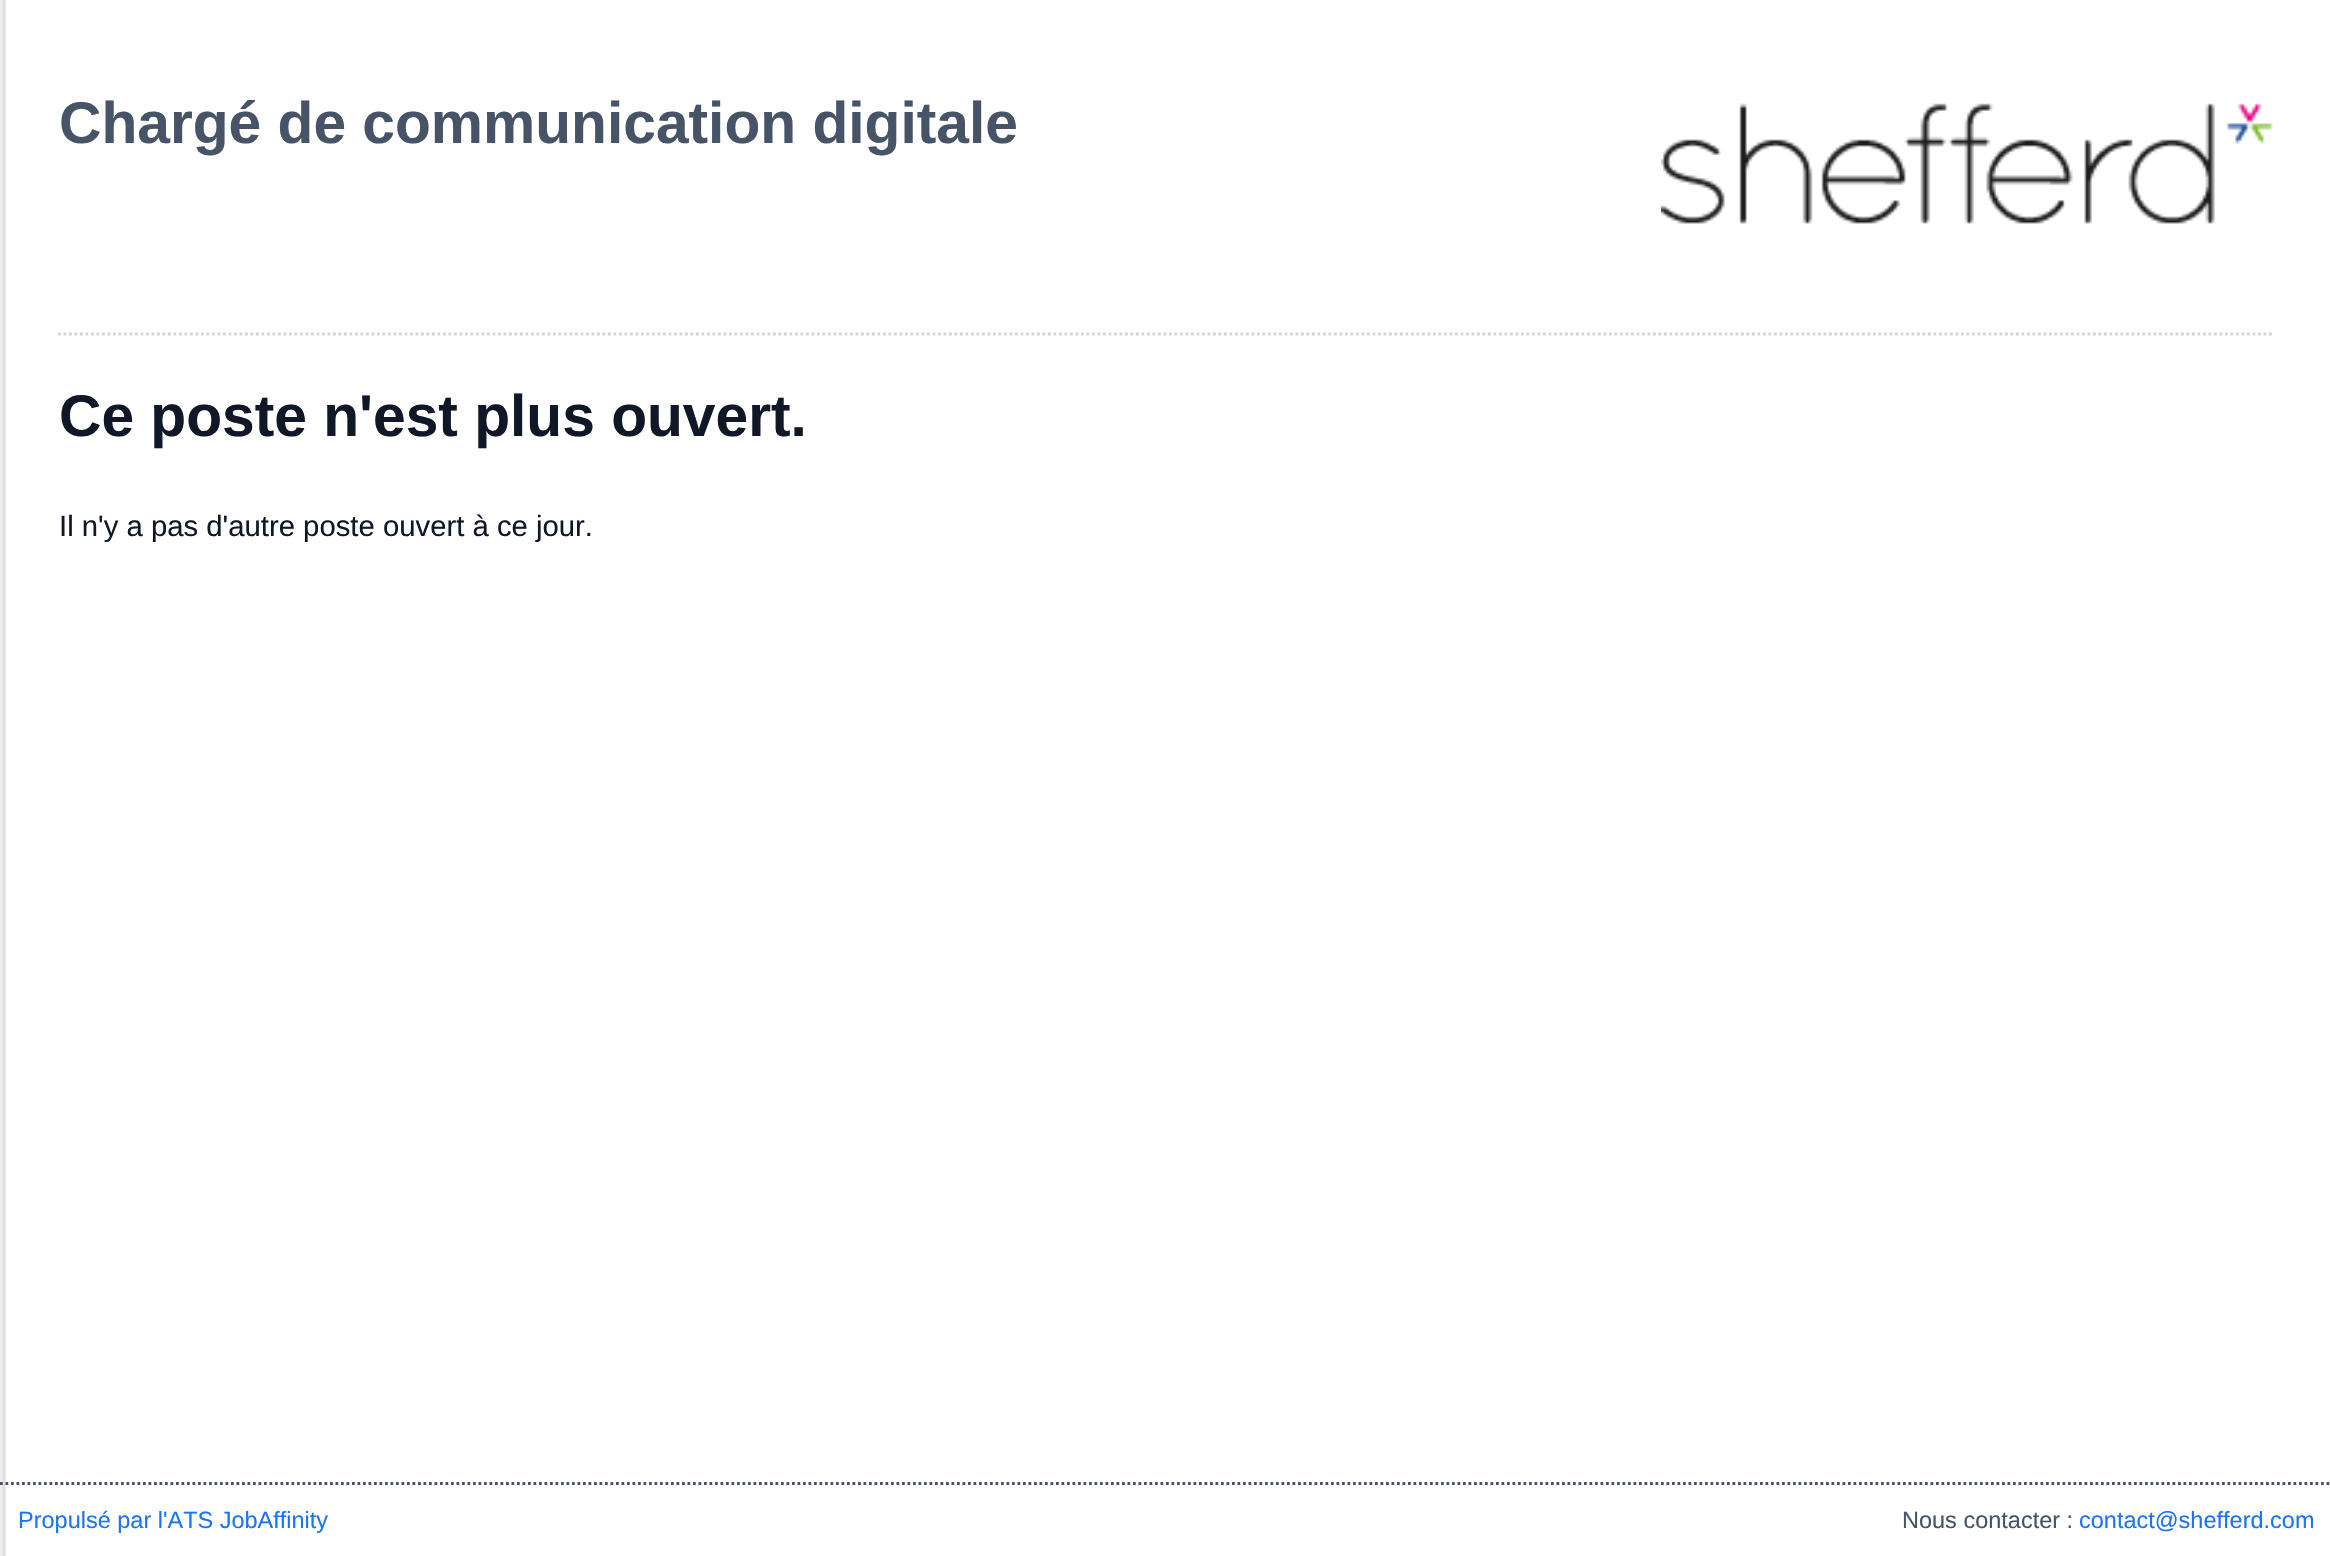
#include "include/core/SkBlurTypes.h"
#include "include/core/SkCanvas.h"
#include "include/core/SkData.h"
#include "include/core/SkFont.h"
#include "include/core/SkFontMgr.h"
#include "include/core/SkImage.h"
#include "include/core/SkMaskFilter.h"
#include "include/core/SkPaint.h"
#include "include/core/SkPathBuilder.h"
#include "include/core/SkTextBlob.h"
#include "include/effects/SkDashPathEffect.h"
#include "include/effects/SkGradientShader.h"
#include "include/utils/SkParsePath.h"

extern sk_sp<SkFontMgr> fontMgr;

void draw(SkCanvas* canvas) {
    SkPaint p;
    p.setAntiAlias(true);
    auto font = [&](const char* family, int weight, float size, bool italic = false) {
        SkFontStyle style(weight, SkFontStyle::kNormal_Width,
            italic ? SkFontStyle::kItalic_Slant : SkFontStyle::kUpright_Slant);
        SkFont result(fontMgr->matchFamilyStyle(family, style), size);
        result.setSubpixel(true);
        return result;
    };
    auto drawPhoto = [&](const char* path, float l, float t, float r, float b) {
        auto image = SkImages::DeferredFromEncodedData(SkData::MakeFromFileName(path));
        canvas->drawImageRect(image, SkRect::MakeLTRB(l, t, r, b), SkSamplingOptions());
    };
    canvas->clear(0xFFFFFFFF);
    drawPhoto("media/1.png", 0, 0, 7, 1556);
    p.setStyle(SkPaint::kStroke_Style);
    p.setStrokeWidth(2.8f);
    p.setColor(0xFFD0D5DD);
    p.setPathEffect(SkDashPathEffect::Make({{2.75f, 2.75f}}, 0));
    canvas->drawPath(SkPathBuilder().moveTo(58, 334).lineTo(2274, 334).detach(), p);
    p.setPathEffect(nullptr);
    auto font1 = font("Liberation Sans", 700, 58.7f);
    p.setStyle(SkPaint::kFill_Style);
    p.setColor(0xFF475467);
    canvas->drawString("Chargé de communication digitale", 59, 143, font1, p);
    drawPhoto("media/2.png", 1661, 103, 2273, 224);
    p.setColor(0xFF101828);
    canvas->drawString("Ce poste n'est plus ouvert.", 59, 436, font1, p);
    auto font2 = font("Liberation Sans", 400, 29.3f);
    canvas->drawString("Il n'y a pas d'autre poste ouvert à ce jour.", 59, 536, font2, p);
    p.setStyle(SkPaint::kStroke_Style);
    p.setColor(0xFF475467);
    p.setPathEffect(SkDashPathEffect::Make({{2.75f, 2.75f}}, 0));
    canvas->drawPath(SkPathBuilder().moveTo(0, 1483.5f).lineTo(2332, 1483.5f).detach(), p);
    p.setPathEffect(nullptr);
    auto font3 = font("Liberation Sans", 400, 23.5f);
    p.setStyle(SkPaint::kFill_Style);
    p.setColor(0xFF1A74F4);
    canvas->drawString("Propulsé par l'ATS JobAffinity", 18, 1528, font3, p);
    p.setColor(0xFF475467);
    canvas->drawString("Nous contacter :", 1902, 1528, font3, p);
    p.setColor(0xFF1A74F4);
    canvas->drawString("contact@shefferd.com", 2079, 1528, font3, p);
}
